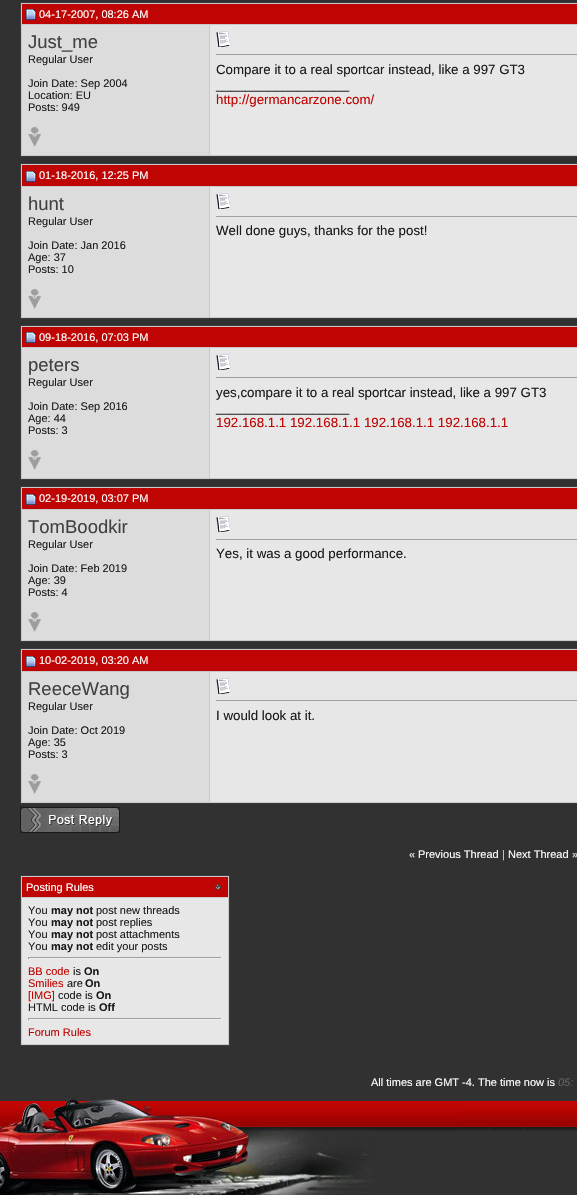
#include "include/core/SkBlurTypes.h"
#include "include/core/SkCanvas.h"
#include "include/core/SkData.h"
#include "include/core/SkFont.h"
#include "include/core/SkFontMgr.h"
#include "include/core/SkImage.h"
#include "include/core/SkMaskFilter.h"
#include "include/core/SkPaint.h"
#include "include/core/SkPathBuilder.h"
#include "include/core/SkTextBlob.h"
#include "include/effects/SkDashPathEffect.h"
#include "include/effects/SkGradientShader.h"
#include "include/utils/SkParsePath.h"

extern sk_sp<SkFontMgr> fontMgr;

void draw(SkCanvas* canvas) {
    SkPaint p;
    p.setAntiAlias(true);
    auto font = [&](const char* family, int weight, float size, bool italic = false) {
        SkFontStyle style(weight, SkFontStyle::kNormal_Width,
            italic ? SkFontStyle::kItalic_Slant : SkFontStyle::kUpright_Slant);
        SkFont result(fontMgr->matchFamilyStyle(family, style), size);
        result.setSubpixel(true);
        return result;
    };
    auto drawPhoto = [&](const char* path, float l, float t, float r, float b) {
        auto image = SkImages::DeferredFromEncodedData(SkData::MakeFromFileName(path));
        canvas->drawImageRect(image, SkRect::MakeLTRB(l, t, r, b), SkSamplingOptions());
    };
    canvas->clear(0xFF313131);
    p.setStyle(SkPaint::kStroke_Style);
    p.setStrokeWidth(1);
    p.setColor(0xFF3B3A3F);
    canvas->drawRect(SkRect::MakeLTRB(20.5f, 2.5f, 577.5f, 156.5f), p);
    p.setStyle(SkPaint::kFill_Style);
    {
        const struct { float l, t, r, b; SkColor color; } items[] = {
            {22, 4, 577, 24, 0xFFBE0503},
            {21, 3, 577, 4, 0xFFC9C9C9},
            {21, 24, 577, 25, 0xFFC9C9C9},
            {21, 3, 22, 119, 0xFFC9C9C9},
        };
        for (auto [l, t, r, b, color] : items) {
            p.setColor(color);
            canvas->drawRect(SkRect::MakeLTRB(l, t, r, b), p);
        }
    }
    drawPhoto("media/1.png", 26, 9, 36, 20);
    auto font1 = font("Liberation Sans", 400, 11);
    p.setColor(0xFFFFFFFF);
    canvas->drawString("04-17-2007, 08:26 AM", 39, 18, font1, p);
    p.setColor(0xFFDCDCDC);
    canvas->drawRect(SkRect::MakeLTRB(22, 25, 209, 155), p);
    p.setColor(0xFFC9C9C9);
    canvas->drawRect(SkRect::MakeLTRB(209, 25, 210, 156), p);
    auto font2 = font("Liberation Sans", 400, 18.5f);
    p.setColor(0xFF414141);
    canvas->drawString("Just_me", 28, 48, font2, p);
    p.setColor(0xFF1A1A1A);
    {
        const struct { const char* s; float x, y; } items[] = {
            {"Regular User", 28, 63},
            {"Join Date: Sep 2004", 28, 87},
            {"Location: EU", 28, 99},
            {"Posts: 949", 28, 111},
        };
        for (auto [s, x, y] : items) {
            canvas->drawString(s, x, y, font1, p);
        }
    }
    p.setColor(0xFFE7E7E7);
    canvas->drawRect(SkRect::MakeLTRB(210, 25, 577, 155), p);
    drawPhoto("media/2.png", 216, 31, 231, 47);
    p.setColor(0xFF9F9F9F);
    canvas->drawRect(SkRect::MakeLTRB(216, 54, 577, 55), p);
    auto font3 = font("Liberation Sans", 400, 13.3f);
    p.setColor(0xFF1A1A1A);
    canvas->drawString("Compare it to a real sportcar instead, like a 997 GT3", 216, 74, font3, p);
    canvas->drawString("__________________", 216, 89, font3, p);
    p.setColor(0xFFBE0503);
    canvas->drawString("http://germancarzone.com/", 216, 104, font3, p);
    p.setColor(0xFFC9C9C9);
    canvas->drawRect(SkRect::MakeLTRB(21, 155, 577, 156), p);
    canvas->drawRect(SkRect::MakeLTRB(21, 119, 22, 156), p);
    drawPhoto("media/3.png", 28, 127, 41, 147);
    p.setStyle(SkPaint::kStroke_Style);
    p.setColor(0xFF3B3A3F);
    canvas->drawRect(SkRect::MakeLTRB(20.5f, 163.5f, 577.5f, 318.5f), p);
    p.setStyle(SkPaint::kFill_Style);
    {
        const struct { float l, t, r, b; SkColor color; } items[] = {
            {22, 165, 577, 186, 0xFFBE0503},
            {21, 164, 577, 165, 0xFFC9C9C9},
            {21, 186, 577, 187, 0xFFC9C9C9},
            {21, 164, 22, 281, 0xFFC9C9C9},
        };
        for (auto [l, t, r, b, color] : items) {
            p.setColor(color);
            canvas->drawRect(SkRect::MakeLTRB(l, t, r, b), p);
        }
    }
    drawPhoto("media/1.png", 26, 171, 36, 182);
    p.setColor(0xFFFFFFFF);
    canvas->drawString("01-18-2016, 12:25 PM", 39, 179, font1, p);
    p.setColor(0xFFDCDCDC);
    canvas->drawRect(SkRect::MakeLTRB(22, 187, 209, 317), p);
    p.setColor(0xFFC9C9C9);
    canvas->drawRect(SkRect::MakeLTRB(209, 187, 210, 318), p);
    p.setColor(0xFF414141);
    canvas->drawString("hunt", 28, 210, font2, p);
    p.setColor(0xFF1A1A1A);
    {
        const struct { const char* s; float x, y; } items[] = {
            {"Regular User", 28, 225},
            {"Join Date: Jan 2016", 28, 249},
            {"Age: 37", 28, 261},
            {"Posts: 10", 28, 273},
        };
        for (auto [s, x, y] : items) {
            canvas->drawString(s, x, y, font1, p);
        }
    }
    p.setColor(0xFFE7E7E7);
    canvas->drawRect(SkRect::MakeLTRB(210, 187, 577, 317), p);
    drawPhoto("media/2.png", 216, 193, 231, 209);
    p.setColor(0xFF9F9F9F);
    canvas->drawRect(SkRect::MakeLTRB(216, 216, 577, 217), p);
    p.setColor(0xFF1A1A1A);
    canvas->drawString("Well done guys, thanks for the post!", 216, 235, font3, p);
    p.setColor(0xFFC9C9C9);
    canvas->drawRect(SkRect::MakeLTRB(21, 317, 577, 318), p);
    canvas->drawRect(SkRect::MakeLTRB(21, 281, 22, 318), p);
    drawPhoto("media/3.png", 28, 289, 41, 309);
    p.setStyle(SkPaint::kStroke_Style);
    p.setColor(0xFF3B3A3F);
    canvas->drawRect(SkRect::MakeLTRB(20.5f, 325.5f, 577.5f, 479.5f), p);
    p.setStyle(SkPaint::kFill_Style);
    {
        const struct { float l, t, r, b; SkColor color; } items[] = {
            {22, 327, 577, 347, 0xFFBE0503},
            {21, 326, 577, 327, 0xFFC9C9C9},
            {21, 347, 577, 348, 0xFFC9C9C9},
            {21, 326, 22, 442, 0xFFC9C9C9},
        };
        for (auto [l, t, r, b, color] : items) {
            p.setColor(color);
            canvas->drawRect(SkRect::MakeLTRB(l, t, r, b), p);
        }
    }
    drawPhoto("media/1.png", 26, 332, 36, 343);
    p.setColor(0xFFFFFFFF);
    canvas->drawString("09-18-2016, 07:03 PM", 39, 341, font1, p);
    p.setColor(0xFFDCDCDC);
    canvas->drawRect(SkRect::MakeLTRB(22, 348, 209, 478), p);
    p.setColor(0xFFC9C9C9);
    canvas->drawRect(SkRect::MakeLTRB(209, 348, 210, 479), p);
    p.setColor(0xFF414141);
    canvas->drawString("peters", 28, 371, font2, p);
    p.setColor(0xFF1A1A1A);
    {
        const struct { const char* s; float x, y; } items[] = {
            {"Regular User", 28, 386},
            {"Join Date: Sep 2016", 28, 410},
            {"Age: 44", 28, 422},
            {"Posts: 3", 28, 434},
        };
        for (auto [s, x, y] : items) {
            canvas->drawString(s, x, y, font1, p);
        }
    }
    p.setColor(0xFFE7E7E7);
    canvas->drawRect(SkRect::MakeLTRB(210, 348, 577, 478), p);
    drawPhoto("media/2.png", 216, 354, 231, 370);
    p.setColor(0xFF9F9F9F);
    canvas->drawRect(SkRect::MakeLTRB(216, 377, 577, 378), p);
    p.setColor(0xFF1A1A1A);
    canvas->drawString("yes,compare it to a real sportcar instead, like a 997 GT3", 216, 397, font3, p);
    canvas->drawString("__________________", 216, 412, font3, p);
    p.setColor(0xFFBE0503);
    canvas->drawString("192.168.1.1 192.168.1.1 192.168.1.1 192.168.1.1", 216, 427, font3, p);
    p.setColor(0xFFC9C9C9);
    canvas->drawRect(SkRect::MakeLTRB(21, 478, 577, 479), p);
    canvas->drawRect(SkRect::MakeLTRB(21, 442, 22, 479), p);
    drawPhoto("media/3.png", 28, 450, 41, 470);
    p.setStyle(SkPaint::kStroke_Style);
    p.setColor(0xFF3B3A3F);
    canvas->drawRect(SkRect::MakeLTRB(20.5f, 486.5f, 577.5f, 641.5f), p);
    p.setStyle(SkPaint::kFill_Style);
    {
        const struct { float l, t, r, b; SkColor color; } items[] = {
            {22, 488, 577, 509, 0xFFBE0503},
            {21, 487, 577, 488, 0xFFC9C9C9},
            {21, 509, 577, 510, 0xFFC9C9C9},
            {21, 487, 22, 604, 0xFFC9C9C9},
        };
        for (auto [l, t, r, b, color] : items) {
            p.setColor(color);
            canvas->drawRect(SkRect::MakeLTRB(l, t, r, b), p);
        }
    }
    drawPhoto("media/1.png", 26, 494, 36, 505);
    p.setColor(0xFFFFFFFF);
    canvas->drawString("02-19-2019, 03:07 PM", 39, 502, font1, p);
    p.setColor(0xFFDCDCDC);
    canvas->drawRect(SkRect::MakeLTRB(22, 510, 209, 640), p);
    p.setColor(0xFFC9C9C9);
    canvas->drawRect(SkRect::MakeLTRB(209, 510, 210, 641), p);
    p.setColor(0xFF414141);
    canvas->drawString("TomBoodkir", 28, 533, font2, p);
    p.setColor(0xFF1A1A1A);
    {
        const struct { const char* s; float x, y; } items[] = {
            {"Regular User", 28, 548},
            {"Join Date: Feb 2019", 28, 572},
            {"Age: 39", 28, 584},
            {"Posts: 4", 28, 596},
        };
        for (auto [s, x, y] : items) {
            canvas->drawString(s, x, y, font1, p);
        }
    }
    p.setColor(0xFFE7E7E7);
    canvas->drawRect(SkRect::MakeLTRB(210, 510, 577, 640), p);
    drawPhoto("media/2.png", 216, 516, 231, 532);
    p.setColor(0xFF9F9F9F);
    canvas->drawRect(SkRect::MakeLTRB(216, 539, 577, 540), p);
    p.setColor(0xFF1A1A1A);
    canvas->drawString("Yes, it was a good performance.", 216, 558, font3, p);
    p.setColor(0xFFC9C9C9);
    canvas->drawRect(SkRect::MakeLTRB(21, 640, 577, 641), p);
    canvas->drawRect(SkRect::MakeLTRB(21, 604, 22, 641), p);
    drawPhoto("media/3.png", 28, 612, 41, 632);
    p.setStyle(SkPaint::kStroke_Style);
    p.setColor(0xFF3B3A3F);
    canvas->drawRect(SkRect::MakeLTRB(20.5f, 648.5f, 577.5f, 803.5f), p);
    p.setStyle(SkPaint::kFill_Style);
    {
        const struct { float l, t, r, b; SkColor color; } items[] = {
            {22, 650, 577, 671, 0xFFBE0503},
            {21, 649, 577, 650, 0xFFC9C9C9},
            {21, 671, 577, 672, 0xFFC9C9C9},
            {21, 649, 22, 766, 0xFFC9C9C9},
        };
        for (auto [l, t, r, b, color] : items) {
            p.setColor(color);
            canvas->drawRect(SkRect::MakeLTRB(l, t, r, b), p);
        }
    }
    drawPhoto("media/1.png", 26, 656, 36, 667);
    p.setColor(0xFFFFFFFF);
    canvas->drawString("10-02-2019, 03:20 AM", 39, 664, font1, p);
    p.setColor(0xFFDCDCDC);
    canvas->drawRect(SkRect::MakeLTRB(22, 672, 209, 802), p);
    p.setColor(0xFFC9C9C9);
    canvas->drawRect(SkRect::MakeLTRB(209, 672, 210, 803), p);
    p.setColor(0xFF414141);
    canvas->drawString("ReeceWang", 28, 695, font2, p);
    p.setColor(0xFF1A1A1A);
    {
        const struct { const char* s; float x, y; } items[] = {
            {"Regular User", 28, 710},
            {"Join Date: Oct 2019", 28, 734},
            {"Age: 35", 28, 746},
            {"Posts: 3", 28, 758},
        };
        for (auto [s, x, y] : items) {
            canvas->drawString(s, x, y, font1, p);
        }
    }
    p.setColor(0xFFE7E7E7);
    canvas->drawRect(SkRect::MakeLTRB(210, 672, 577, 802), p);
    drawPhoto("media/2.png", 216, 678, 231, 694);
    p.setColor(0xFF9F9F9F);
    canvas->drawRect(SkRect::MakeLTRB(216, 700, 577, 701), p);
    p.setColor(0xFF1A1A1A);
    canvas->drawString("I would look at it.", 216, 720, font3, p);
    p.setColor(0xFFC9C9C9);
    canvas->drawRect(SkRect::MakeLTRB(21, 802, 577, 803), p);
    canvas->drawRect(SkRect::MakeLTRB(21, 766, 22, 803), p);
    drawPhoto("media/3.png", 28, 774, 41, 794);
    drawPhoto("media/4.png", 20, 807, 120, 833);
    auto font4 = font("Liberation Sans", 700, 11);
    p.setColor(0xFFCCCCCC);
    canvas->drawString("«", 409, 858, font4, p);
    p.setColor(0xFFFFFFFF);
    canvas->drawString("Previous Thread", 418, 858, font1, p);
    p.setColor(0xFFCCCCCC);
    canvas->drawString("|", 502, 858, font1, p);
    p.setColor(0xFFFFFFFF);
    canvas->drawString("Next Thread", 508, 858, font1, p);
    p.setColor(0xFFCCCCCC);
    canvas->drawString("»", 572, 858, font4, p);
    p.setColor(0xFFC9C9C9);
    canvas->drawRect(SkRect::MakeLTRB(20.5f, 875.5f, 229.5f, 1045.5f), p);
    p.setStyle(SkPaint::kStroke_Style);
    p.setColor(0xFF3B3A3F);
    canvas->drawRect(SkRect::MakeLTRB(20.5f, 875.5f, 229.5f, 1045.5f), p);
    p.setStyle(SkPaint::kFill_Style);
    p.setColor(0xFFBE0503);
    canvas->drawRect(SkRect::MakeLTRB(22, 877, 228, 897), p);
    p.setColor(0xFFFFFFFF);
    canvas->drawString("Posting Rules", 26, 891, font1, p);
    drawPhoto("media/5.png", 215, 884, 221, 890);
    p.setColor(0xFFE7E7E7);
    canvas->drawRect(SkRect::MakeLTRB(22, 898, 228, 1044), p);
    p.setColor(0xFF1A1A1A);
    canvas->drawString("You", 28, 914, font1, p);
    canvas->drawString("may not", 51, 914, font4, p);
    canvas->drawString("post new threads", 96, 914, font1, p);
    canvas->drawString("You", 28, 926, font1, p);
    canvas->drawString("may not", 51, 926, font4, p);
    canvas->drawString("post replies", 96, 926, font1, p);
    canvas->drawString("You", 28, 938, font1, p);
    canvas->drawString("may not", 51, 938, font4, p);
    canvas->drawString("post attachments", 96, 938, font1, p);
    canvas->drawString("You", 28, 950, font1, p);
    canvas->drawString("may not", 51, 950, font4, p);
    canvas->drawString("edit your posts", 96, 950, font1, p);
    {
        const struct { float l, t, r, b; SkColor color; } items[] = {
            {28, 957, 222, 958, 0xFF9F9F9F},
            {221, 957, 222, 959, 0xFFEEEEEE},
            {28, 958, 222, 959, 0xFFEEEEEE},
            {28, 957, 29, 959, 0xFF9F9F9F},
        };
        for (auto [l, t, r, b, color] : items) {
            p.setColor(color);
            canvas->drawRect(SkRect::MakeLTRB(l, t, r, b), p);
        }
    }
    p.setColor(0xFFBE0503);
    canvas->drawString("BB code", 28, 975, font1, p);
    p.setColor(0xFF1A1A1A);
    canvas->drawString("is", 73, 975, font1, p);
    canvas->drawString("On", 84, 975, font4, p);
    p.setColor(0xFFBE0503);
    canvas->drawString("Smilies", 28, 987, font1, p);
    p.setColor(0xFF1A1A1A);
    canvas->drawString("are", 67, 987, font1, p);
    canvas->drawString("On", 85, 987, font4, p);
    p.setColor(0xFFBE0503);
    canvas->drawString("[IMG]", 28, 999, font1, p);
    p.setColor(0xFF1A1A1A);
    canvas->drawString("code is", 58, 999, font1, p);
    canvas->drawString("On", 96, 999, font4, p);
    canvas->drawString("HTML code is", 28, 1011, font1, p);
    canvas->drawString("Off", 99, 1011, font4, p);
    {
        const struct { float l, t, r, b; SkColor color; } items[] = {
            {28, 1018, 222, 1019, 0xFF9F9F9F},
            {221, 1018, 222, 1020, 0xFFEEEEEE},
            {28, 1019, 222, 1020, 0xFFEEEEEE},
            {28, 1018, 29, 1020, 0xFF9F9F9F},
        };
        for (auto [l, t, r, b, color] : items) {
            p.setColor(color);
            canvas->drawRect(SkRect::MakeLTRB(l, t, r, b), p);
        }
    }
    p.setColor(0xFFBE0503);
    canvas->drawString("Forum Rules", 28, 1036, font1, p);
    drawPhoto("media/6.png", 458, 1101, 577, 1131);
    drawPhoto("media/7.png", 0, 1097, 458, 1195);
    p.setColor(0xFFFFFFFF);
    canvas->drawString("All times are GMT -4. The time now is", 371, 1086, font1, p);
    auto font5 = font("Liberation Sans", 400, 11, true);
    p.setColor(0xFF666666);
    canvas->drawString("05:", 558, 1086, font5, p);
}
